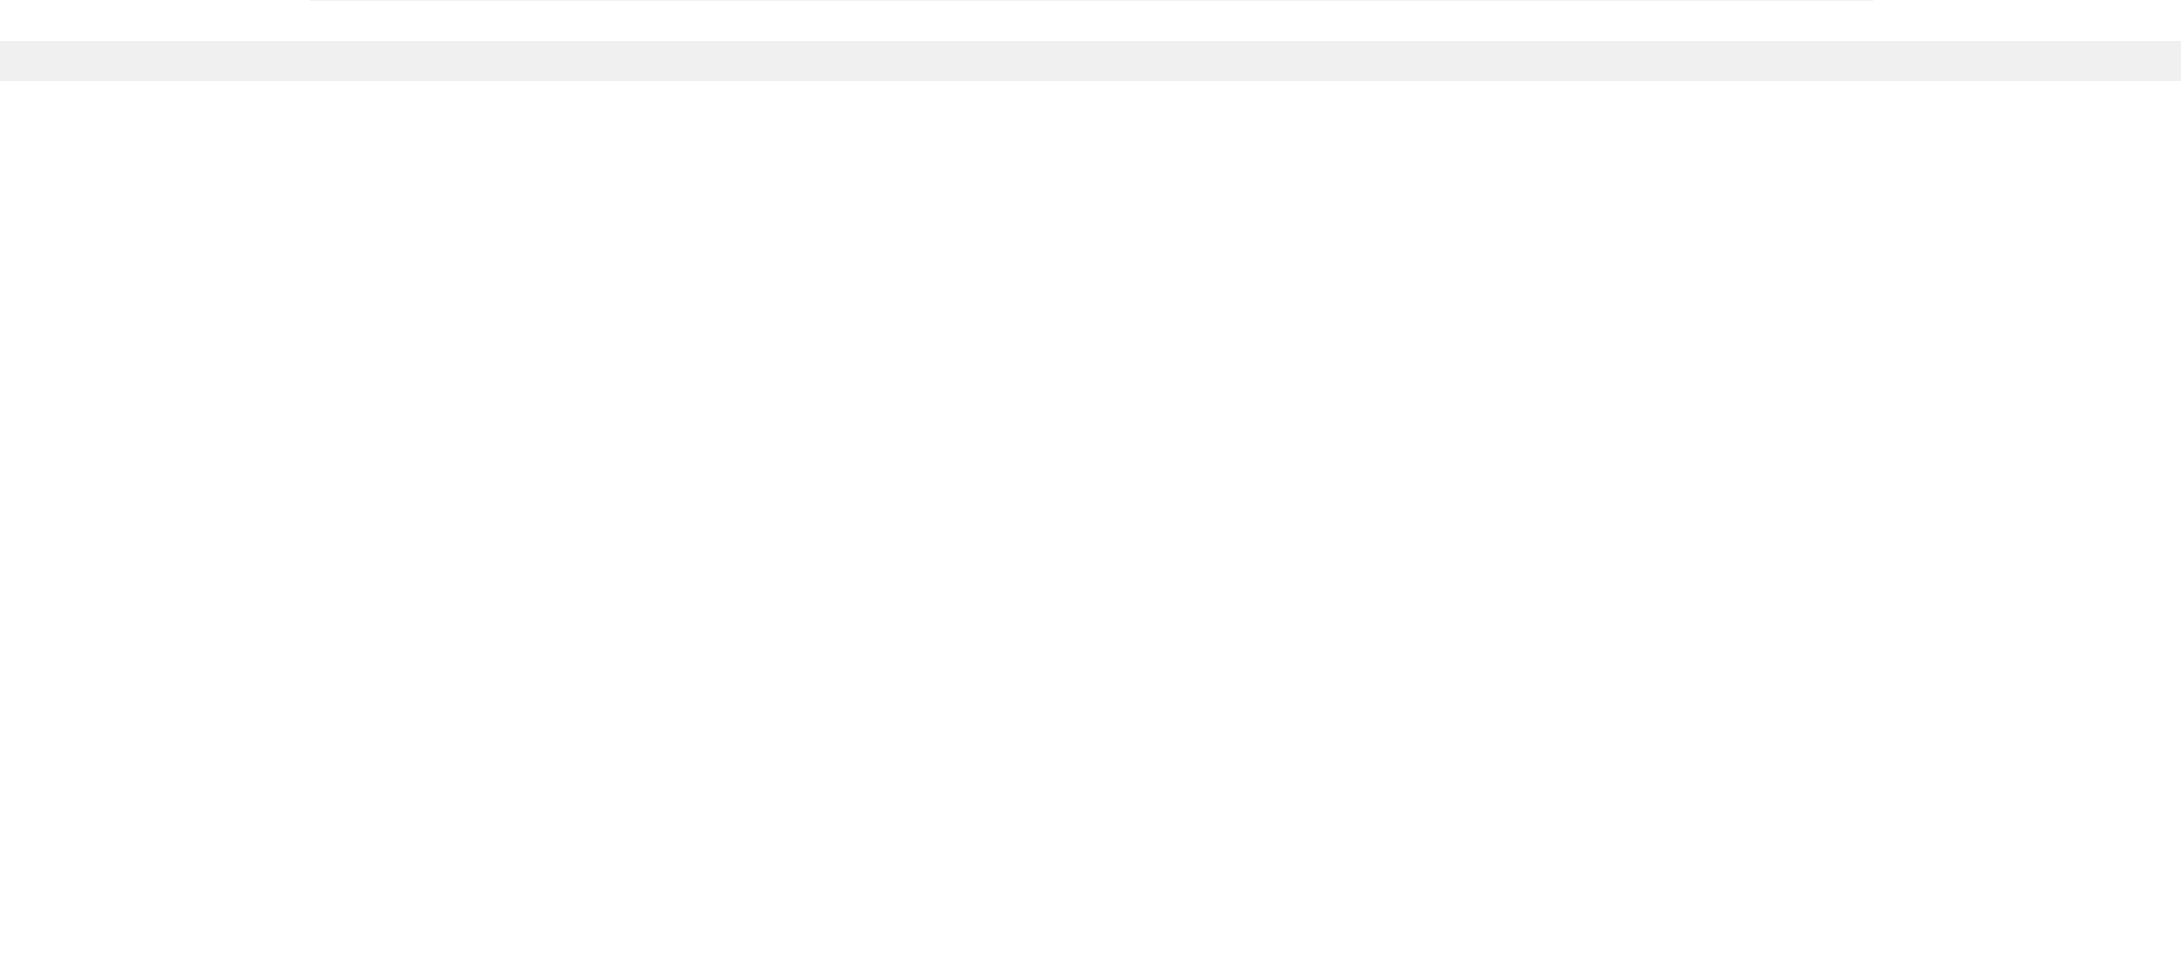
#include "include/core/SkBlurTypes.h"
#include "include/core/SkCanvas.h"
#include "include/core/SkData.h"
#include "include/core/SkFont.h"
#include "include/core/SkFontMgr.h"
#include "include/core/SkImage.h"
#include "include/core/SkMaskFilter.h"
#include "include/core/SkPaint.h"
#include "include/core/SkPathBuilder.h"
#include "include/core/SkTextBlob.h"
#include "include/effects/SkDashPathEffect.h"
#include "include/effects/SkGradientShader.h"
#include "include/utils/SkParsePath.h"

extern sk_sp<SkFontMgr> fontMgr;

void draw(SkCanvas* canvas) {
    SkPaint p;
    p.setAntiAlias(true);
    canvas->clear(0xFFFFFFFF);
    p.setColor(0xFFF2F2F2);
    canvas->drawRect(SkRect::MakeLTRB(310, 0, 1873, 1), p);
    p.setColor(0xFFF0F0F0);
    canvas->drawRect(SkRect::MakeLTRB(0, 41, 2181, 81), p);
}
